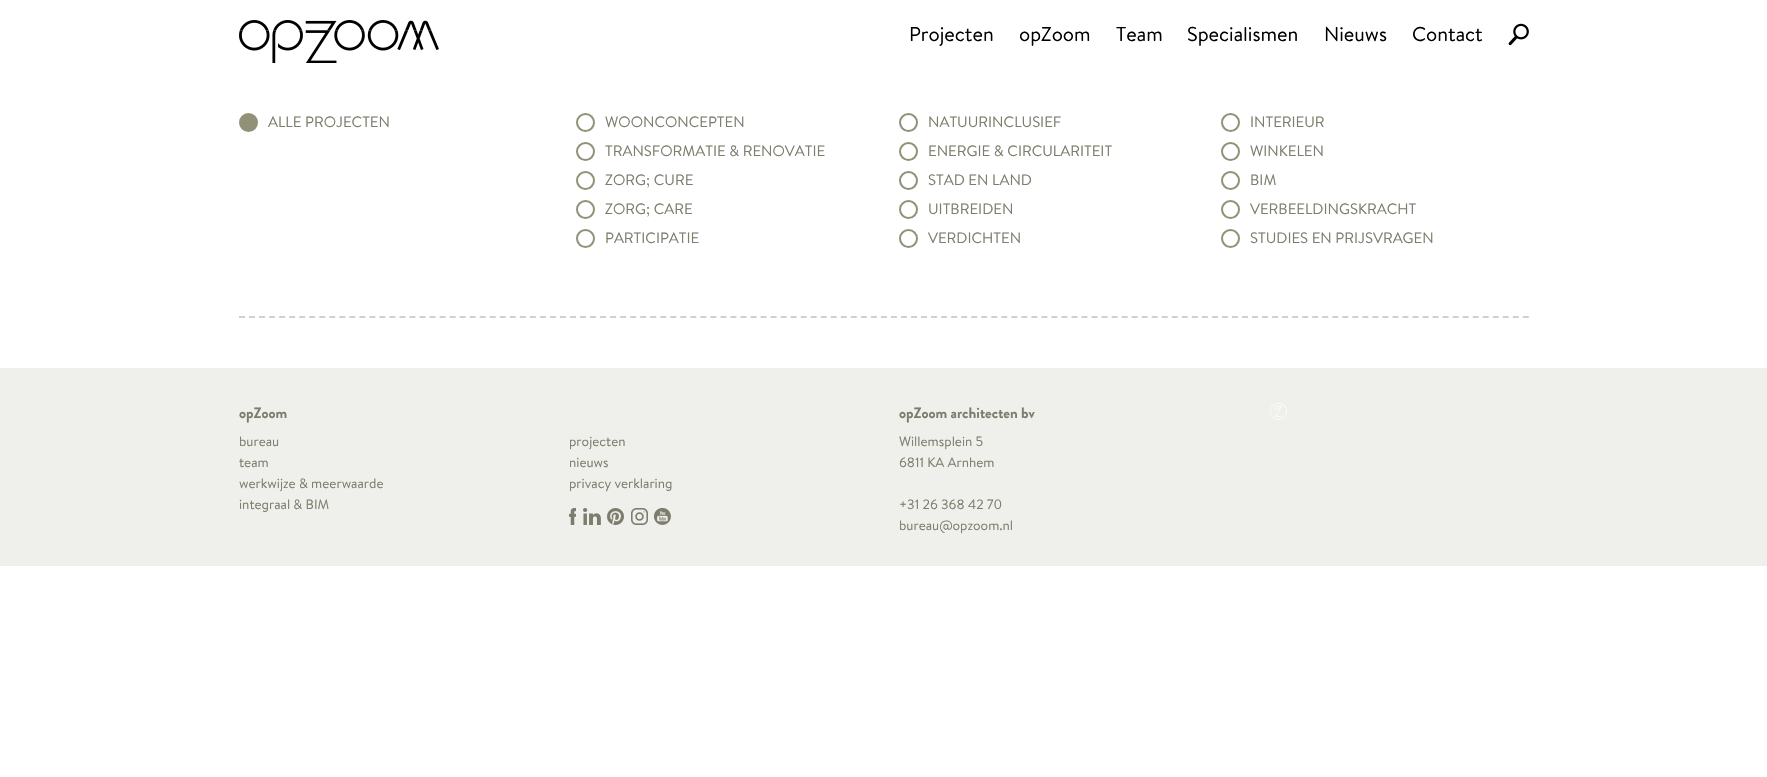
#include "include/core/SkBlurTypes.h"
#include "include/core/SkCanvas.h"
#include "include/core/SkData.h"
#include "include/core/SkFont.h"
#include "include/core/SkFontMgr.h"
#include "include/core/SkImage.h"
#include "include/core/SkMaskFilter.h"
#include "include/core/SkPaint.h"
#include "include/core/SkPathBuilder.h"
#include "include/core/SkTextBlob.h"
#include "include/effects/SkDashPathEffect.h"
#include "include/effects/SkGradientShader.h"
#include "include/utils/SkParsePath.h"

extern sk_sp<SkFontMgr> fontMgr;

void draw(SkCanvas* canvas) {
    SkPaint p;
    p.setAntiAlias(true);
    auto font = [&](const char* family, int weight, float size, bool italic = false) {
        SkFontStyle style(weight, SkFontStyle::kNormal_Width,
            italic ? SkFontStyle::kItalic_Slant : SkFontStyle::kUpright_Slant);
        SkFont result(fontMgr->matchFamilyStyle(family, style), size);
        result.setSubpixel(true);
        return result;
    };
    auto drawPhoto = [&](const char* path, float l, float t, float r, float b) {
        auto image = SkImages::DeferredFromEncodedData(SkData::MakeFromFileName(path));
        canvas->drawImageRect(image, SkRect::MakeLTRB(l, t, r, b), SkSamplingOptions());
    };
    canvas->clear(0xFFFFFFFF);
    drawPhoto("media/1.png", 239, 20, 439, 63);
    auto font1 = font("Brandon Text", 400, 20);
    p.setColor(0xFF000000);
    {
        const struct { const char* s; float x, y; } items[] = {
            {"Projecten", 909, 41},
            {"opZoom", 1019, 41},
            {"Team", 1116, 41},
            {"Specialismen", 1187, 41},
            {"Nieuws", 1324, 41},
            {"Contact", 1412, 41},
        };
        for (auto [s, x, y] : items) {
            canvas->drawString(s, x, y, font1, p);
        }
    }
    drawPhoto("media/2.png", 1508, 23, 1529, 46);
    p.setColor(0xFF919178);
    canvas->drawCircle(248.5f, 122.5f, 8.5f, p);
    p.setStyle(SkPaint::kStroke_Style);
    p.setStrokeWidth(2);
    canvas->drawCircle(248.5f, 122.5f, 8.5f, p);
    auto font2 = font("Brandon Text", 400, 15);
    p.setStyle(SkPaint::kFill_Style);
    p.setColor(0xFF7D7D6E);
    canvas->drawString("ALLE PROJECTEN", 268, 127, font2, p);
    p.setStyle(SkPaint::kStroke_Style);
    p.setColor(0xFF919178);
    canvas->drawCircle(585.5f, 122.5f, 8.5f, p);
    p.setStyle(SkPaint::kFill_Style);
    p.setColor(0xFF7D7D6E);
    canvas->drawString("WOONCONCEPTEN", 605, 127, font2, p);
    p.setStyle(SkPaint::kStroke_Style);
    p.setColor(0xFF919178);
    canvas->drawCircle(908.5f, 122.5f, 8.5f, p);
    p.setStyle(SkPaint::kFill_Style);
    p.setColor(0xFF7D7D6E);
    canvas->drawString("NATUURINCLUSIEF", 928, 127, font2, p);
    p.setStyle(SkPaint::kStroke_Style);
    p.setColor(0xFF919178);
    canvas->drawCircle(1230.5f, 122.5f, 8.5f, p);
    p.setStyle(SkPaint::kFill_Style);
    p.setColor(0xFF7D7D6E);
    canvas->drawString("INTERIEUR", 1250, 127, font2, p);
    p.setStyle(SkPaint::kStroke_Style);
    p.setColor(0xFF919178);
    canvas->drawCircle(585.5f, 151.5f, 8.5f, p);
    p.setStyle(SkPaint::kFill_Style);
    p.setColor(0xFF7D7D6E);
    canvas->drawString("TRANSFORMATIE & RENOVATIE", 605, 156, font2, p);
    p.setStyle(SkPaint::kStroke_Style);
    p.setColor(0xFF919178);
    canvas->drawCircle(908.5f, 151.5f, 8.5f, p);
    p.setStyle(SkPaint::kFill_Style);
    p.setColor(0xFF7D7D6E);
    canvas->drawString("ENERGIE & CIRCULARITEIT", 928, 156, font2, p);
    p.setStyle(SkPaint::kStroke_Style);
    p.setColor(0xFF919178);
    canvas->drawCircle(1230.5f, 151.5f, 8.5f, p);
    p.setStyle(SkPaint::kFill_Style);
    p.setColor(0xFF7D7D6E);
    canvas->drawString("WINKELEN", 1250, 156, font2, p);
    p.setStyle(SkPaint::kStroke_Style);
    p.setColor(0xFF919178);
    canvas->drawCircle(585.5f, 180.5f, 8.5f, p);
    p.setStyle(SkPaint::kFill_Style);
    p.setColor(0xFF7D7D6E);
    canvas->drawString("ZORG; CURE", 605, 185, font2, p);
    p.setStyle(SkPaint::kStroke_Style);
    p.setColor(0xFF919178);
    canvas->drawCircle(908.5f, 180.5f, 8.5f, p);
    p.setStyle(SkPaint::kFill_Style);
    p.setColor(0xFF7D7D6E);
    canvas->drawString("STAD EN LAND", 928, 185, font2, p);
    p.setStyle(SkPaint::kStroke_Style);
    p.setColor(0xFF919178);
    canvas->drawCircle(1230.5f, 180.5f, 8.5f, p);
    p.setStyle(SkPaint::kFill_Style);
    p.setColor(0xFF7D7D6E);
    canvas->drawString("BIM", 1250, 185, font2, p);
    p.setStyle(SkPaint::kStroke_Style);
    p.setColor(0xFF919178);
    canvas->drawCircle(585.5f, 209.5f, 8.5f, p);
    p.setStyle(SkPaint::kFill_Style);
    p.setColor(0xFF7D7D6E);
    canvas->drawString("ZORG; CARE", 605, 214, font2, p);
    p.setStyle(SkPaint::kStroke_Style);
    p.setColor(0xFF919178);
    canvas->drawCircle(908.5f, 209.5f, 8.5f, p);
    p.setStyle(SkPaint::kFill_Style);
    p.setColor(0xFF7D7D6E);
    canvas->drawString("UITBREIDEN", 928, 214, font2, p);
    p.setStyle(SkPaint::kStroke_Style);
    p.setColor(0xFF919178);
    canvas->drawCircle(1230.5f, 209.5f, 8.5f, p);
    p.setStyle(SkPaint::kFill_Style);
    p.setColor(0xFF7D7D6E);
    canvas->drawString("VERBEELDINGSKRACHT", 1250, 214, font2, p);
    p.setStyle(SkPaint::kStroke_Style);
    p.setColor(0xFF919178);
    canvas->drawCircle(585.5f, 238.5f, 8.5f, p);
    p.setStyle(SkPaint::kFill_Style);
    p.setColor(0xFF7D7D6E);
    canvas->drawString("PARTICIPATIE", 605, 243, font2, p);
    p.setStyle(SkPaint::kStroke_Style);
    p.setColor(0xFF919178);
    canvas->drawCircle(908.5f, 238.5f, 8.5f, p);
    p.setStyle(SkPaint::kFill_Style);
    p.setColor(0xFF7D7D6E);
    canvas->drawString("VERDICHTEN", 928, 243, font2, p);
    p.setStyle(SkPaint::kStroke_Style);
    p.setColor(0xFF919178);
    canvas->drawCircle(1230.5f, 238.5f, 8.5f, p);
    p.setStyle(SkPaint::kFill_Style);
    p.setColor(0xFF7D7D6E);
    canvas->drawString("STUDIES EN PRIJSVRAGEN", 1250, 243, font2, p);
    p.setStyle(SkPaint::kStroke_Style);
    p.setColor(0xFFD1D1CC);
    p.setPathEffect(SkDashPathEffect::Make({{6, 4.03f}}, 0));
    canvas->drawPath(SkPathBuilder().moveTo(239, 317).lineTo(1529, 317).detach(), p);
    p.setPathEffect(nullptr);
    p.setStyle(SkPaint::kFill_Style);
    p.setColor(0xFFEFEFEB);
    canvas->drawRect(SkRect::MakeLTRB(0, 368, 1767, 566), p);
    auto font3 = font("Brandon Grotesque", 700, 15);
    p.setColor(0xFF7D7D6E);
    canvas->drawString("opZoom", 239, 418, font3, p);
    auto font4 = font("Brandon Text", 400, 13.5f);
    {
        const struct { const char* s; float x, y; } items[] = {
            {"bureau", 239, 446},
            {"projecten", 569, 446},
            {"team", 239, 467},
            {"nieuws", 569, 467},
            {"werkwijze & meerwaarde", 239, 488},
            {"privacy verklaring", 569, 488},
            {"integraal & BIM", 239, 509},
        };
        for (auto [s, x, y] : items) {
            canvas->drawString(s, x, y, font4, p);
        }
    }
    drawPhoto("media/3.png", 569, 508, 576, 525);
    drawPhoto("media/4.png", 583, 508, 601, 525);
    drawPhoto("media/5.png", 607, 508, 624, 525);
    drawPhoto("media/6.png", 631, 508, 648, 525);
    drawPhoto("media/7.png", 654, 508, 671, 525);
    canvas->drawString("opZoom architecten bv", 899, 418, font3, p);
    {
        const struct { const char* s; float x, y; } items[] = {
            {"Willemsplein 5", 899, 446},
            {"6811 KA Arnhem", 899, 467},
            {"+31 26 368 42 70", 899, 509},
            {"bureau@opzoom.nl", 899, 530},
        };
        for (auto [s, x, y] : items) {
            canvas->drawString(s, x, y, font4, p);
        }
    }
    drawPhoto("media/8.png", 1270, 403, 1287, 420);
}
